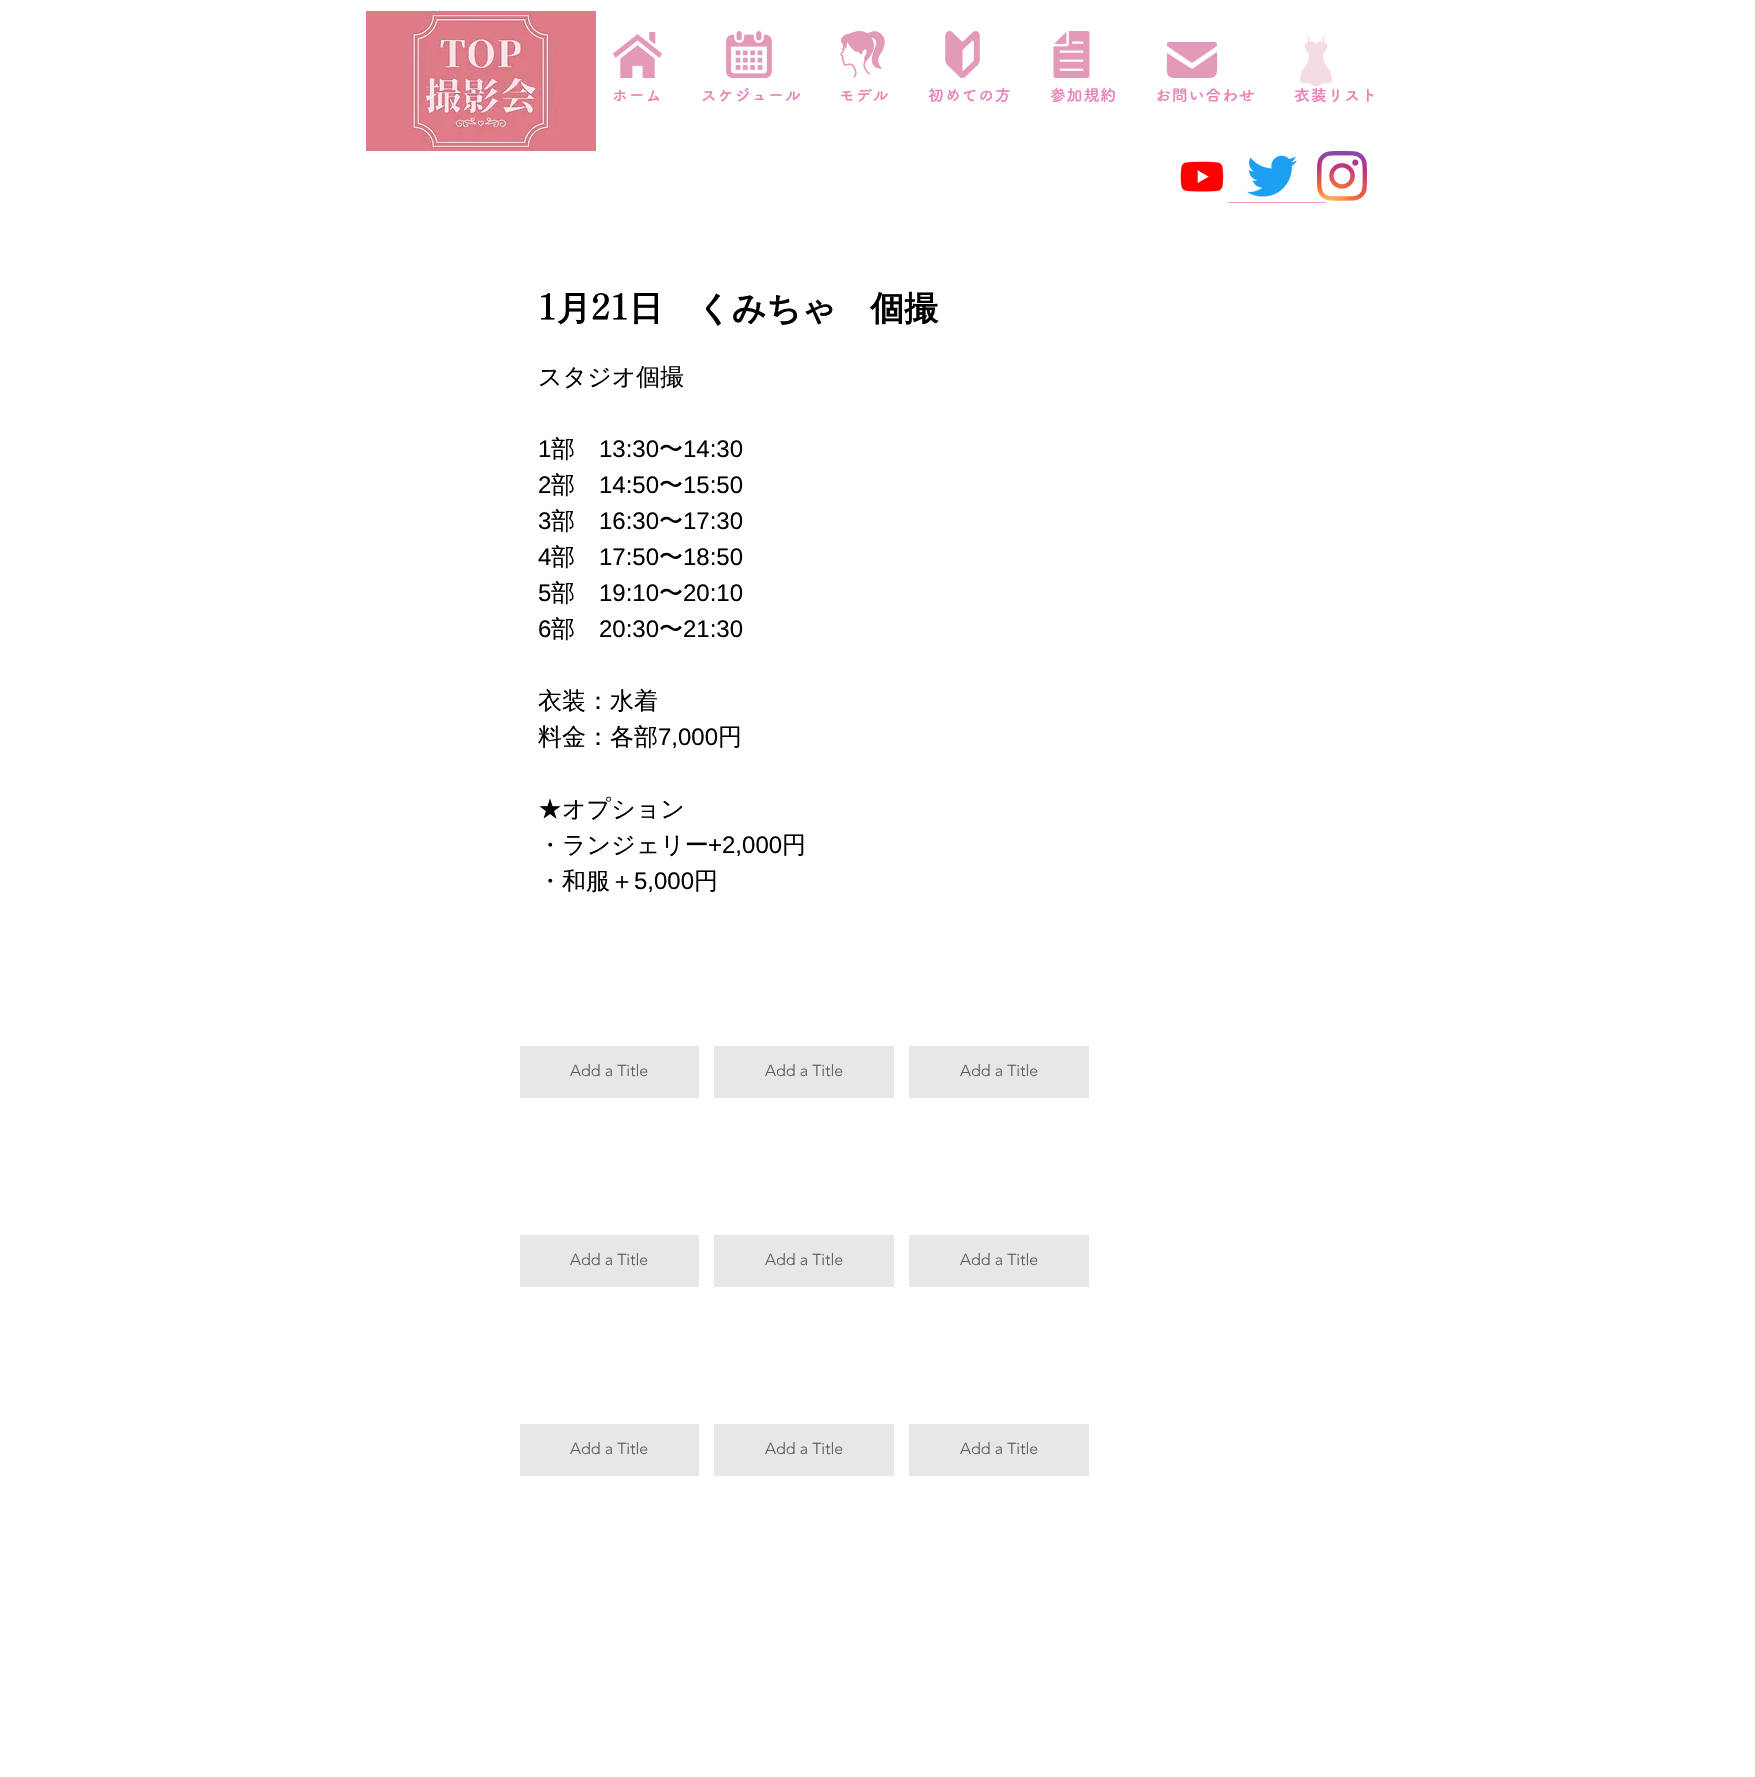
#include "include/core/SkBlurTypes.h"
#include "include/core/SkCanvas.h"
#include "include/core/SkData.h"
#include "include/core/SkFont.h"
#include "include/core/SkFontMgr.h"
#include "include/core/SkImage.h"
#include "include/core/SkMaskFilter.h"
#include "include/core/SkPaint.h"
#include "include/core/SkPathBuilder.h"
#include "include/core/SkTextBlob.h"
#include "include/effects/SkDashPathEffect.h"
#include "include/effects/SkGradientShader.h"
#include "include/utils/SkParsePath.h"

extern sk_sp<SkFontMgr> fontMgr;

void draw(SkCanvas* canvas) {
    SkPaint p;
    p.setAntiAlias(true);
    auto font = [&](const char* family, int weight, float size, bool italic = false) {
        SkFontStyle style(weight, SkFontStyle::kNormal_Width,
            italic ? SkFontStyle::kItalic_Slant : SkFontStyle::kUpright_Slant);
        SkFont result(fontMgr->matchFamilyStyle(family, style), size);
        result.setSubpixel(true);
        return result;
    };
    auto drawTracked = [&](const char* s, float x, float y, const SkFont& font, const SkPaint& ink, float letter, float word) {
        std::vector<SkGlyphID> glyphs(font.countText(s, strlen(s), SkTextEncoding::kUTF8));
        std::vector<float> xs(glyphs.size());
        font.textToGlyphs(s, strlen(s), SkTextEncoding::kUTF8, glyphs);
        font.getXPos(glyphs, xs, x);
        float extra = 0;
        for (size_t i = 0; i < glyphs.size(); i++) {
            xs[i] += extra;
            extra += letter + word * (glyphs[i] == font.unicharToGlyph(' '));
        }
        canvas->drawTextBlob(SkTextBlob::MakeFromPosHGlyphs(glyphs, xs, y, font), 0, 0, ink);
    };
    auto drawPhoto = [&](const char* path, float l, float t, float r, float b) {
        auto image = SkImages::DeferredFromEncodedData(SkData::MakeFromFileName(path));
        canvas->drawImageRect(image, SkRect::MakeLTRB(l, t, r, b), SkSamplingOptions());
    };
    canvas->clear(0xFFFFFFFF);
    drawPhoto("media/1.png", 366, 11, 596, 151);
    drawPhoto("media/2.png", 612, 32, 663, 78);
    drawPhoto("media/3.png", 726, 31, 772, 78);
    drawPhoto("media/4.png", 840, 31, 885, 78);
    drawPhoto("media/5.png", 945, 31, 980, 78);
    drawPhoto("media/6.png", 1053, 31, 1090, 78);
    p.setColor(0xFFE39AB9);
    canvas->drawPath(SkPathBuilder().moveTo(1215, 42).lineTo(1169, 42).cubicTo(1168, 42, 1167, 43, 1167, 43).lineTo(1167, 46).lineTo(1192, 63).lineTo(1217, 46).cubicTo(1217, 45, 1217, 42, 1215, 42).close().detach(), p);
    canvas->drawPath(SkPathBuilder().moveTo(1167, 53).cubicTo(1167, 81, 1163, 78, 1192, 78).cubicTo(1221, 78, 1217, 81, 1217, 52).lineTo(1192, 69).close().detach(), p);
    drawPhoto("media/7.png", 1300, 36, 1340, 86);
    auto font1 = font("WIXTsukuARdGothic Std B", 700, 16);
    p.setColor(0xFFEA81B4);
    {
        const struct { const char* s; float x, y; } items[] = {
            {"ホーム", 612, 101},
            {"スケジュール", 701, 101},
            {"モデル", 839, 101},
            {"初めての方", 928, 101},
            {"参加規約", 1050, 101},
            {"お問い合わせ", 1155, 101},
            {"衣装リスト", 1294, 101},
        };
        for (auto [s, x, y] : items) {
            drawTracked(s, x, y, font1, p, 0.75f, 0);
        }
    }
    drawPhoto("media/8.png", 1180, 161, 1224, 192);
    drawPhoto("media/9.png", 1247, 155, 1297, 197);
    drawPhoto("media/10.png", 1317, 151, 1367, 201);
    p.setColor(0xFFEC9EBF);
    canvas->drawRect(SkRect::MakeLTRB(1228, 202, 1326, 203), p);
    auto font2 = font("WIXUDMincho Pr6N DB", 600, 34);
    p.setColor(0xFF000000);
    canvas->drawString("1", 538, 320, font2, p);
    auto font3 = font("WenQuanYi Zen Hei", 700, 34);
    canvas->drawString("月", 557, 320, font3, p);
    canvas->drawString("21", 591, 320, font2, p);
    canvas->drawString("日　くみちゃ　個撮", 629, 320, font3, p);
    auto font4 = font("WenQuanYi Zen Hei", 500, 24);
    canvas->drawString("スタジオ個撮", 538, 385, font4, p);
    auto font5 = font("Liberation Sans", 400, 24);
    canvas->drawString("1", 538, 457, font5, p);
    canvas->drawString("部", 551, 457, font4, p);
    canvas->drawString("13:30", 599, 457, font5, p);
    canvas->drawString("〜", 659, 457, font4, p);
    canvas->drawString("14:30", 683, 457, font5, p);
    canvas->drawString("2", 538, 493, font5, p);
    canvas->drawString("部", 551, 493, font4, p);
    canvas->drawString("14:50", 599, 493, font5, p);
    canvas->drawString("〜", 659, 493, font4, p);
    canvas->drawString("15:50", 683, 493, font5, p);
    canvas->drawString("3", 538, 529, font5, p);
    canvas->drawString("部", 551, 529, font4, p);
    canvas->drawString("16:30", 599, 529, font5, p);
    canvas->drawString("〜", 659, 529, font4, p);
    canvas->drawString("17:30", 683, 529, font5, p);
    canvas->drawString("4", 538, 565, font5, p);
    canvas->drawString("部", 551, 565, font4, p);
    canvas->drawString("17:50", 599, 565, font5, p);
    canvas->drawString("〜", 659, 565, font4, p);
    canvas->drawString("18:50", 683, 565, font5, p);
    canvas->drawString("5", 538, 601, font5, p);
    canvas->drawString("部", 551, 601, font4, p);
    canvas->drawString("19:10", 599, 601, font5, p);
    canvas->drawString("〜", 659, 601, font4, p);
    canvas->drawString("20:10", 683, 601, font5, p);
    canvas->drawString("6", 538, 637, font5, p);
    canvas->drawString("部", 551, 637, font4, p);
    canvas->drawString("20:30", 599, 637, font5, p);
    canvas->drawString("〜", 659, 637, font4, p);
    canvas->drawString("21:30", 683, 637, font5, p);
    canvas->drawString("衣装：水着", 538, 709, font4, p);
    canvas->drawString("料金：各部", 538, 745, font4, p);
    canvas->drawString("7,000", 658, 745, font5, p);
    {
        const struct { const char* s; float x, y; } items[] = {
            {"円", 718, 745},
            {"★オプション", 538, 817},
            {"・ランジェリー", 538, 853},
        };
        for (auto [s, x, y] : items) {
            canvas->drawString(s, x, y, font4, p);
        }
    }
    canvas->drawString("+2,000", 708, 853, font5, p);
    canvas->drawString("円", 782, 853, font4, p);
    canvas->drawString("・和服＋", 538, 889, font4, p);
    canvas->drawString("5,000", 634, 889, font5, p);
    canvas->drawString("円", 694, 889, font4, p);
    p.setColor(0xFFE8E6E6);
    canvas->drawRect(SkRect::MakeLTRB(520, 1046, 699, 1098), p);
    auto font6 = font("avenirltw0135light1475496", 300, 16);
    p.setColor(0xFF595959);
    canvas->drawString("Add a Title", 570, 1076, font6, p);
    p.setColor(0xFFE8E6E6);
    canvas->drawRect(SkRect::MakeLTRB(714, 1046, 894, 1098), p);
    p.setColor(0xFF595959);
    canvas->drawString("Add a Title", 765, 1076, font6, p);
    p.setColor(0xFFE8E6E6);
    canvas->drawRect(SkRect::MakeLTRB(909, 1046, 1089, 1098), p);
    p.setColor(0xFF595959);
    canvas->drawString("Add a Title", 960, 1076, font6, p);
    p.setColor(0xFFE8E6E6);
    canvas->drawRect(SkRect::MakeLTRB(520, 1235, 699, 1287), p);
    p.setColor(0xFF595959);
    canvas->drawString("Add a Title", 570, 1265, font6, p);
    p.setColor(0xFFE8E6E6);
    canvas->drawRect(SkRect::MakeLTRB(714, 1235, 894, 1287), p);
    p.setColor(0xFF595959);
    canvas->drawString("Add a Title", 765, 1265, font6, p);
    p.setColor(0xFFE8E6E6);
    canvas->drawRect(SkRect::MakeLTRB(909, 1235, 1089, 1287), p);
    p.setColor(0xFF595959);
    canvas->drawString("Add a Title", 960, 1265, font6, p);
    p.setColor(0xFFE8E6E6);
    canvas->drawRect(SkRect::MakeLTRB(520, 1424, 699, 1476), p);
    p.setColor(0xFF595959);
    canvas->drawString("Add a Title", 570, 1454, font6, p);
    p.setColor(0xFFE8E6E6);
    canvas->drawRect(SkRect::MakeLTRB(714, 1424, 894, 1476), p);
    p.setColor(0xFF595959);
    canvas->drawString("Add a Title", 765, 1454, font6, p);
    p.setColor(0xFFE8E6E6);
    canvas->drawRect(SkRect::MakeLTRB(909, 1424, 1089, 1476), p);
    p.setColor(0xFF595959);
    canvas->drawString("Add a Title", 960, 1454, font6, p);
}
